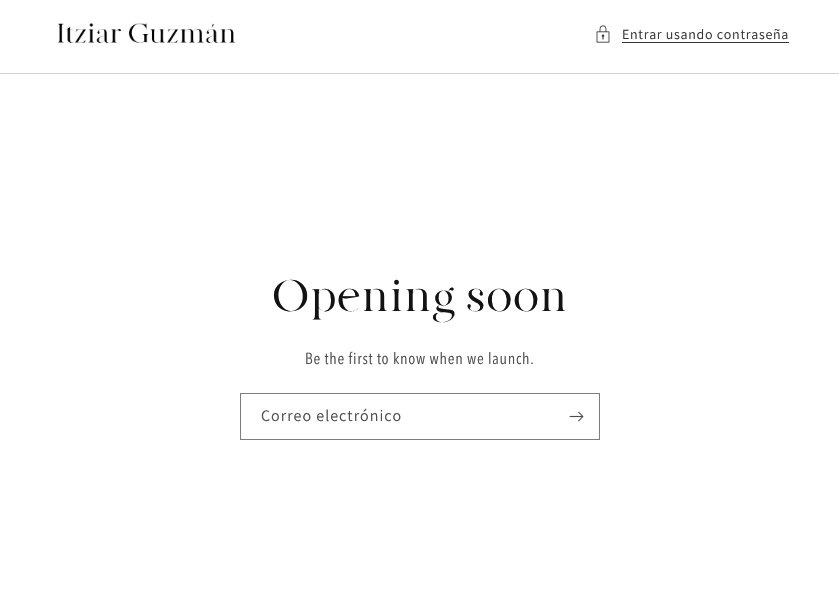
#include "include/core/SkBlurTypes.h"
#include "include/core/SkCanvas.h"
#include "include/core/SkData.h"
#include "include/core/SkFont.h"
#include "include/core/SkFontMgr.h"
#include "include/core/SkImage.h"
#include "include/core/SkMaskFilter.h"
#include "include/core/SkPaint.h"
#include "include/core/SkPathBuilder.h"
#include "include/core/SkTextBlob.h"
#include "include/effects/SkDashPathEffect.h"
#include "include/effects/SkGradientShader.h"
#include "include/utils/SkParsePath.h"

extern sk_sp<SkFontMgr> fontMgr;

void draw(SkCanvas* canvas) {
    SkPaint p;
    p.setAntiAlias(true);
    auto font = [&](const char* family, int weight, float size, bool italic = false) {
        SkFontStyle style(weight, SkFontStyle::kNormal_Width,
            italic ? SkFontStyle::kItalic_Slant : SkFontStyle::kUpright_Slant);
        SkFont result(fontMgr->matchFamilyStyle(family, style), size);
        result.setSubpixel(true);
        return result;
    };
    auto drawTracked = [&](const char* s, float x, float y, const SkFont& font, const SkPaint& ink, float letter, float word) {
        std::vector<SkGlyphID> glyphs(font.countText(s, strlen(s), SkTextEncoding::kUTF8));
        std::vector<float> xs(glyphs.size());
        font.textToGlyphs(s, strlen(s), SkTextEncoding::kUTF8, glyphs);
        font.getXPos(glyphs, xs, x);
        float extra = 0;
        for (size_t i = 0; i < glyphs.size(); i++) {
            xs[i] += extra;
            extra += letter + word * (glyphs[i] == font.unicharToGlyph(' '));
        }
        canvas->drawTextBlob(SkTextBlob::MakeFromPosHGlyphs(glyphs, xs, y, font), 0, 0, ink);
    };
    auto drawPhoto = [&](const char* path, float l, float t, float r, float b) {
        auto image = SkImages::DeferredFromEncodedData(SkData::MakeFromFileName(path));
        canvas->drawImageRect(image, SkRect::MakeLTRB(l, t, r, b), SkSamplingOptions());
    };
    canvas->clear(0xFFFFFFFF);
    drawPhoto("media/1.png", 57, 22, 236, 43);
    drawPhoto("media/2.png", 596, 25, 610, 43);
    auto font1 = font("Assistant", 200, 14);
    p.setColor(0xFF363636);
    drawTracked("Entrar usando contraseña", 622, 39, font1, p, 0.7f, 0);
    canvas->drawRect(SkRect::MakeLTRB(622, 42, 789, 43), p);
    p.setColor(0xFFD0D0D0);
    canvas->drawRect(SkRect::MakeLTRB(0, 73, 839, 74), p);
    auto font2 = font("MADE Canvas", 400, 44);
    p.setColor(0xFF121212);
    drawTracked("Opening soon", 272, 311, font2, p, 0.7f, 0);
    auto font3 = font("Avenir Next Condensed", 400, 16);
    p.setColor(0xFF4D4D4D);
    drawTracked("Be the first to know when we launch.", 305, 364, font3, p, 0.7f, 0);
    p.setStyle(SkPaint::kStroke_Style);
    p.setStrokeWidth(1);
    p.setColor(0xFF7D7D7D);
    canvas->drawRect(SkRect::MakeLTRB(240.5f, 393.5f, 599.5f, 439.5f), p);
    auto font4 = font("Assistant", 200, 16);
    p.setStyle(SkPaint::kFill_Style);
    p.setColor(0xFF4D4D4D);
    drawTracked("Correo electrónico", 261, 421, font4, p, 1, 0);
    drawPhoto("media/3.png", 569, 411, 584, 422);
}
